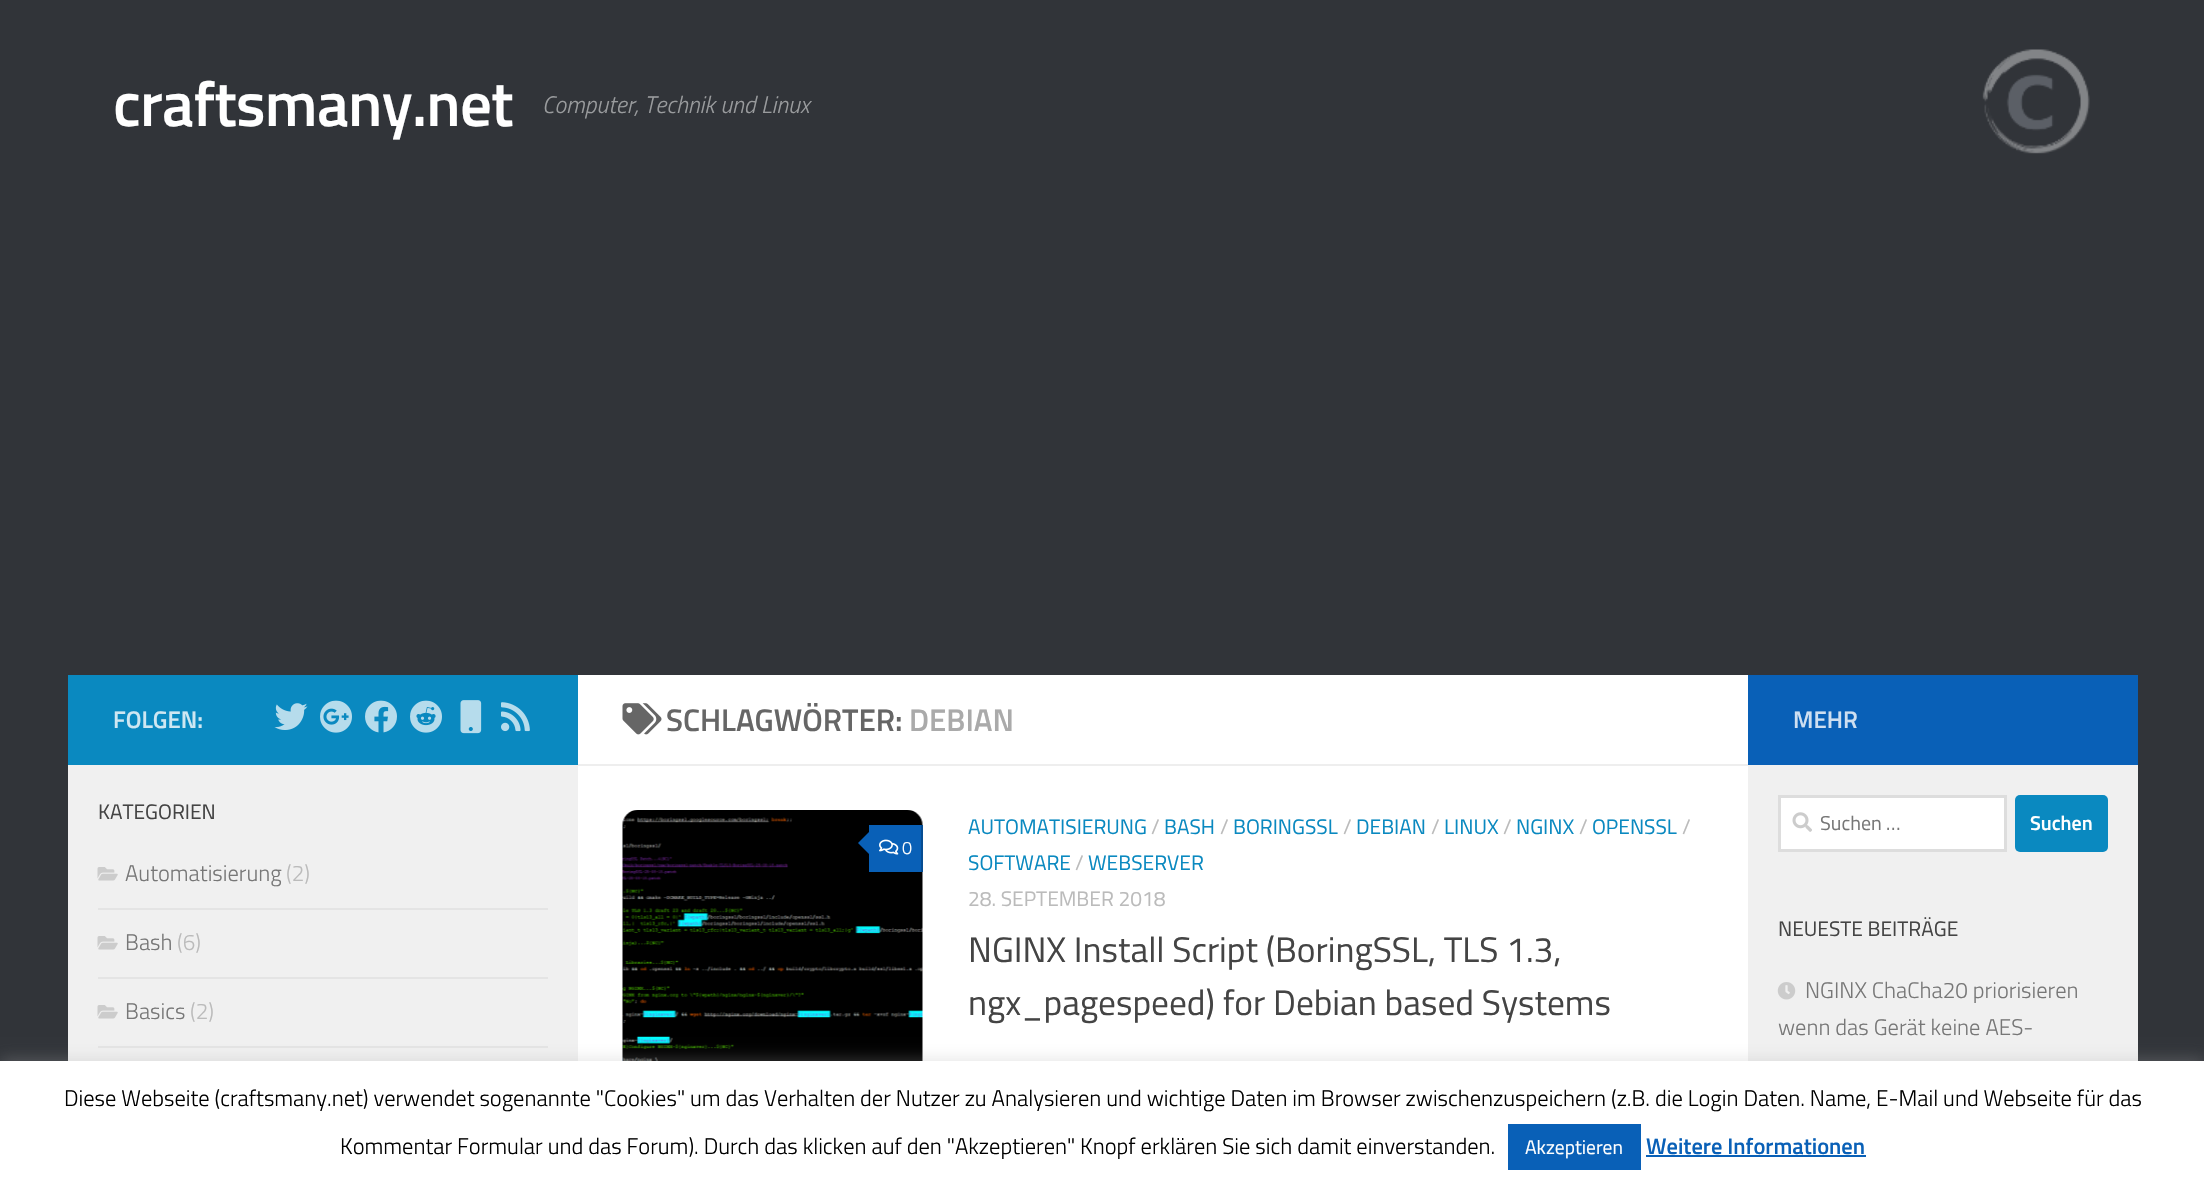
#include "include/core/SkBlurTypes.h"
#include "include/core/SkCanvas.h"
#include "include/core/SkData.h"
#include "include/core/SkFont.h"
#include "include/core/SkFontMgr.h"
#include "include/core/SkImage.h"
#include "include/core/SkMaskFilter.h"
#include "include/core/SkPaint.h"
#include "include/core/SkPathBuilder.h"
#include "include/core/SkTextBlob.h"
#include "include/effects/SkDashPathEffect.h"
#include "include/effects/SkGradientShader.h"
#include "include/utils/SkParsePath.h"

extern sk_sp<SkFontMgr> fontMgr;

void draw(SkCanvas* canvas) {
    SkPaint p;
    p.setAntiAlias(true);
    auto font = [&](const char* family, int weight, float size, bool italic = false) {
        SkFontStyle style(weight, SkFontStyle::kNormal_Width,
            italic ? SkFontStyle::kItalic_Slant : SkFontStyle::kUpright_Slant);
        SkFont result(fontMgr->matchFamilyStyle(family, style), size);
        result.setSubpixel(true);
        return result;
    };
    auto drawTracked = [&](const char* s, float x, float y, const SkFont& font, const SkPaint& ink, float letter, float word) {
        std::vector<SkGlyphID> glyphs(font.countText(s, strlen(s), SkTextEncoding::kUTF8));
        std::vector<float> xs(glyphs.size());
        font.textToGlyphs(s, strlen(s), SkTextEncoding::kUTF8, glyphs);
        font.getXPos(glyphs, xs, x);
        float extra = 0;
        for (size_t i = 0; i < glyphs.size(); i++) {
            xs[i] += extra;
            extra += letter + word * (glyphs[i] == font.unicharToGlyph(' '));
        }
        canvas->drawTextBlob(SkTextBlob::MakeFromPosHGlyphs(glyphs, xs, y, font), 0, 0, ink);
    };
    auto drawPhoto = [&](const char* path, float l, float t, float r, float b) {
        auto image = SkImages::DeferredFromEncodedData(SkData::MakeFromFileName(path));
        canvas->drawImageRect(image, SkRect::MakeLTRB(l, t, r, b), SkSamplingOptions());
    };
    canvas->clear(0xFF313439);
    auto font1 = font("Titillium", 600, 63);
    p.setColor(0xFFFFFFFF);
    drawTracked("craftsmany.net", 113, 126, font1, p, -0.75f, 0);
    auto font2 = font("Titillium", 300, 24, true);
    p.setColor(0xFF999B9D);
    canvas->drawString("Computer, Technik und Linux", 542, 113, font2, p);
    drawPhoto("media/1.png", 1982, 49, 2090, 154);
    p.setColor(0xFFFFFFFF);
    canvas->drawRect(SkRect::MakeLTRB(578, 675, 1748, 1061), p);
    p.setColor(0xFF0A89C0);
    canvas->drawRect(SkRect::MakeLTRB(68, 675, 578, 765), p);
    auto font3 = font("Titillium", 600, 24);
    p.setColor(0xFFCEE7F2);
    canvas->drawString("FOLGEN:", 113, 728, font3, p);
    drawPhoto("media/2.png", 274, 703, 308, 730);
    drawPhoto("media/3.png", 320, 700, 352, 733);
    drawPhoto("media/4.png", 365, 700, 397, 733);
    drawPhoto("media/5.png", 410, 700, 442, 733);
    drawPhoto("media/6.png", 460, 700, 482, 734);
    drawPhoto("media/7.png", 501, 702, 530, 732);
    p.setColor(0xFFF0F0F0);
    canvas->drawRect(SkRect::MakeLTRB(68, 765, 578, 1061), p);
    auto font4 = font("Titillium", 400, 21);
    p.setColor(0xFF444444);
    canvas->drawString("KATEGORIEN", 98, 819, font4, p);
    p.setColor(0xFFE4E4E4);
    canvas->drawRect(SkRect::MakeLTRB(98, 908, 548, 910), p);
    drawPhoto("media/8.png", 97, 867, 118, 881);
    auto font5 = font("Titillium", 300, 22.5f);
    p.setColor(0xFF777777);
    canvas->drawString("Automatisierung", 125, 881, font5, p);
    p.setColor(0xFFBBBBBB);
    canvas->drawString("(2)", 286, 881, font5, p);
    p.setColor(0xFFE4E4E4);
    canvas->drawRect(SkRect::MakeLTRB(98, 977, 548, 979), p);
    drawPhoto("media/8.png", 97, 936, 118, 950);
    p.setColor(0xFF777777);
    canvas->drawString("Bash", 125, 950, font5, p);
    p.setColor(0xFFBBBBBB);
    canvas->drawString("(6)", 177, 950, font5, p);
    p.setColor(0xFFE4E4E4);
    canvas->drawRect(SkRect::MakeLTRB(98, 1046, 548, 1048), p);
    drawPhoto("media/8.png", 97, 1005, 118, 1019);
    p.setColor(0xFF777777);
    canvas->drawString("Basics", 125, 1019, font5, p);
    p.setColor(0xFFBBBBBB);
    canvas->drawString("(2)", 190, 1019, font5, p);
    p.setColor(0xFFEEEEEE);
    canvas->drawRect(SkRect::MakeLTRB(578, 764, 1748, 766), p);
    drawPhoto("media/9.png", 622, 703, 662, 735);
    auto font6 = font("Titillium", 600, 31.25f);
    p.setColor(0xFF666666);
    canvas->drawString("SCHLAGWÖRTER:", 666, 731, font6, p);
    p.setColor(0xFFAAAAAA);
    canvas->drawString("DEBIAN", 909, 731, font6, p);
    drawPhoto("media/10.png", 622, 810, 923, 1061);
    p.setColor(0xFF0960B7);
    canvas->drawRect(SkRect::MakeLTRB(869, 825, 921, 872), p);
    p.setColor(0xFF074D92);
    canvas->drawRect(SkRect::MakeLTRB(921, 825, 923, 872), p);
    p.setColor(0xFF0960B7);
    canvas->drawPath(SkPathBuilder().moveTo(871.5f, 829.5f).lineTo(871.5f, 856.5f).lineTo(858, 843).close().detach(), p);
    drawPhoto("media/11.png", 879, 839, 899, 855);
    auto font7 = font("Titillium", 300, 18);
    p.setColor(0xFFFFFFFF);
    canvas->drawString("0", 902, 854, font7, p);
    p.setColor(0xFF0A89C0);
    canvas->drawString("AUTOMATISIERUNG", 968, 834, font4, p);
    p.setColor(0xFFBBBBBB);
    canvas->drawString("/", 1151, 834, font4, p);
    p.setColor(0xFF0A89C0);
    canvas->drawString("BASH", 1164, 834, font4, p);
    p.setColor(0xFFBBBBBB);
    canvas->drawString("/", 1220, 834, font4, p);
    p.setColor(0xFF0A89C0);
    canvas->drawString("BORINGSSL", 1233, 834, font4, p);
    p.setColor(0xFFBBBBBB);
    canvas->drawString("/", 1343, 834, font4, p);
    p.setColor(0xFF0A89C0);
    canvas->drawString("DEBIAN", 1356, 834, font4, p);
    p.setColor(0xFFBBBBBB);
    canvas->drawString("/", 1431, 834, font4, p);
    p.setColor(0xFF0A89C0);
    canvas->drawString("LINUX", 1444, 834, font4, p);
    p.setColor(0xFFBBBBBB);
    canvas->drawString("/", 1503, 834, font4, p);
    p.setColor(0xFF0A89C0);
    canvas->drawString("NGINX", 1516, 834, font4, p);
    p.setColor(0xFFBBBBBB);
    canvas->drawString("/", 1579, 834, font4, p);
    p.setColor(0xFF0A89C0);
    canvas->drawString("OPENSSL", 1592, 834, font4, p);
    p.setColor(0xFFBBBBBB);
    canvas->drawString("/", 1682, 834, font4, p);
    p.setColor(0xFF0A89C0);
    canvas->drawString("SOFTWARE", 968, 870, font4, p);
    p.setColor(0xFFBBBBBB);
    canvas->drawString("/", 1075, 870, font4, p);
    p.setColor(0xFF0A89C0);
    canvas->drawString("WEBSERVER", 1088, 870, font4, p);
    p.setColor(0xFFBBBBBB);
    canvas->drawString("28. SEPTEMBER 2018", 968, 906, font4, p);
    auto font8 = font("Titillium", 400, 35.4f);
    p.setColor(0xFF444444);
    canvas->drawString("NGINX Install Script (BoringSSL, TLS 1.3,", 968, 962, font8, p);
    canvas->drawString("ngx_pagespeed) for Debian based Systems", 968, 1015, font8, p);
    p.setColor(0xFF0960B7);
    canvas->drawRect(SkRect::MakeLTRB(1748, 675, 2138, 765), p);
    p.setColor(0xFFCEDFF1);
    canvas->drawString("MEHR", 1793, 728, font3, p);
    p.setColor(0xFFF0F0F0);
    canvas->drawRect(SkRect::MakeLTRB(1748, 765, 2138, 1061), p);
    p.setColor(0xFFFFFFFF);
    canvas->drawRect(SkRect::MakeLTRB(1779.5f, 796.5f, 2005.5f, 850.5f), p);
    p.setStyle(SkPaint::kStroke_Style);
    p.setStrokeWidth(3);
    p.setColor(0xFFDDDDDD);
    canvas->drawRect(SkRect::MakeLTRB(1779.5f, 796.5f, 2005.5f, 850.5f), p);
    drawPhoto("media/12.png", 1792, 812, 1812, 832);
    auto font9 = font("Titillium", 400, 20);
    p.setStyle(SkPaint::kFill_Style);
    p.setColor(0xFF777777);
    canvas->drawString("Suchen …", 1820, 830, font9, p);
    p.setColor(0xFF0A89C0);
    canvas->drawRoundRect(SkRect::MakeLTRB(2015, 795, 2108, 852), 5, 5, p);
    auto font10 = font("Titillium", 600, 20);
    p.setColor(0xFFFFFFFF);
    canvas->drawString("Suchen", 2030, 830, font10, p);
    p.setColor(0xFF444444);
    canvas->drawString("NEUESTE BEITRÄGE", 1778, 936, font4, p);
    drawPhoto("media/13.png", 1777, 982, 1796, 1000);
    p.setColor(0xFF777777);
    canvas->drawString("NGINX ChaCha20 priorisieren", 1805, 998, font5, p);
    canvas->drawString("wenn das Gerät keine AES-", 1778, 1035, font5, p);
    p.setColor(0x4DACABAB);
    p.setMaskFilter(SkMaskFilter::MakeBlur(kNormal_SkBlurStyle, 7.5f));
    canvas->drawRect(SkRect::MakeLTRB(0, 1059, 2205, 1187), p);
    p.setMaskFilter(nullptr);
    p.setColor(0xFFFFFFFF);
    canvas->drawRect(SkRect::MakeLTRB(0, 1061, 2204, 1187), p);
    p.setColor(0xFF000000);
    canvas->drawString("Diese Webseite (craftsmany.net) verwendet sogenannte \"Cookies\" um das Verhalten der Nutzer zu Analysieren und wichtige Daten im Browser zwischenzuspeichern (z.B. die Login Daten. Name, E-Mail und Webseite für das", 64, 1106, font5, p);
    canvas->drawString("Kommentar Formular und das Forum). Durch das klicken auf den \"Akzeptieren\" Knopf erklären Sie sich damit einverstanden.", 340, 1154, font5, p);
    p.setColor(0xFF0960B7);
    canvas->drawRect(SkRect::MakeLTRB(1508, 1124, 1641, 1170), p);
    auto font11 = font("Titillium", 400, 19.5f);
    p.setColor(0xFFFFFFFF);
    canvas->drawString("Akzeptieren", 1525, 1154, font11, p);
    auto font12 = font("Titillium", 600, 22.5f);
    p.setColor(0xFF0960B7);
    canvas->drawString("Weitere Informationen", 1646, 1154, font12, p);
    canvas->drawRect(SkRect::MakeLTRB(1646, 1155, 1866, 1157), p);
}
